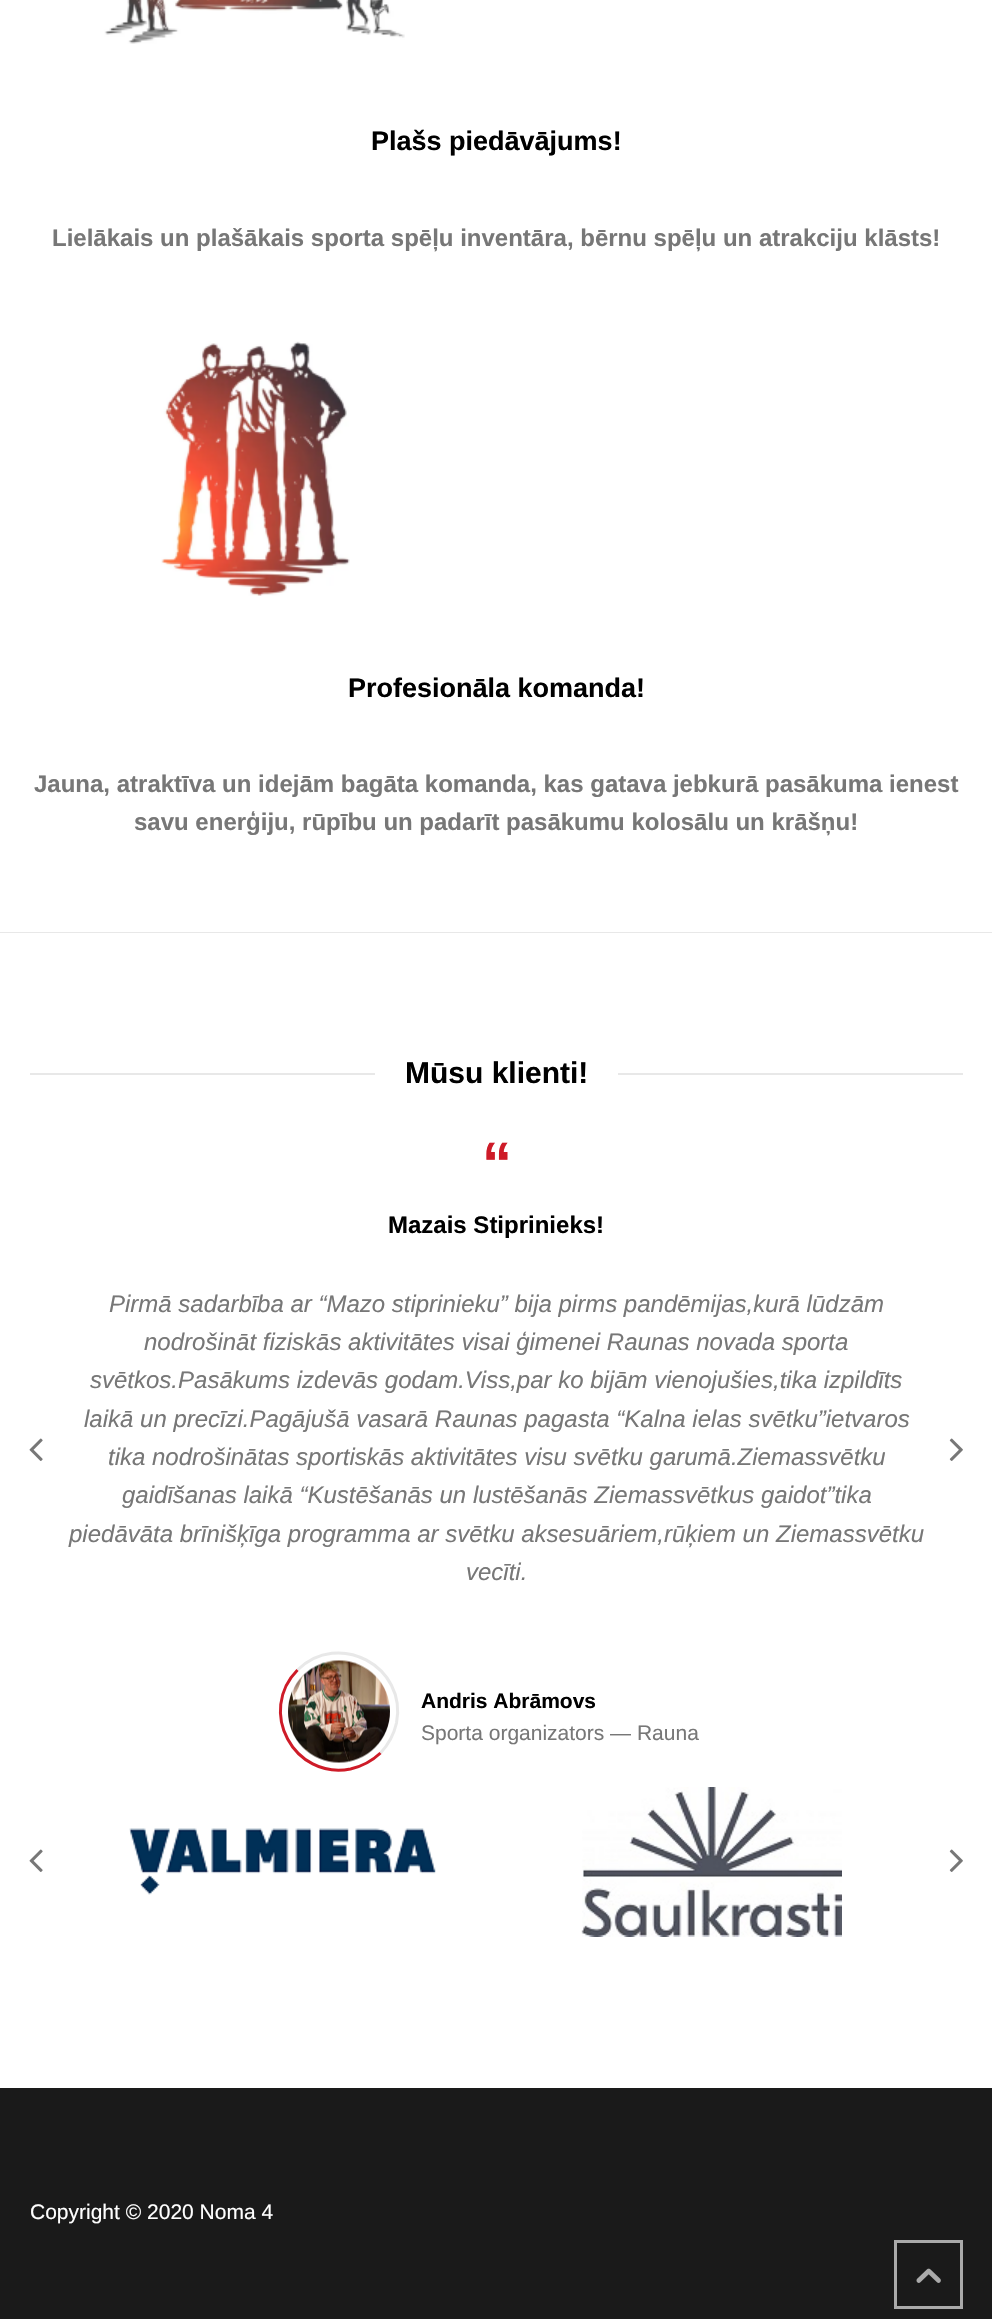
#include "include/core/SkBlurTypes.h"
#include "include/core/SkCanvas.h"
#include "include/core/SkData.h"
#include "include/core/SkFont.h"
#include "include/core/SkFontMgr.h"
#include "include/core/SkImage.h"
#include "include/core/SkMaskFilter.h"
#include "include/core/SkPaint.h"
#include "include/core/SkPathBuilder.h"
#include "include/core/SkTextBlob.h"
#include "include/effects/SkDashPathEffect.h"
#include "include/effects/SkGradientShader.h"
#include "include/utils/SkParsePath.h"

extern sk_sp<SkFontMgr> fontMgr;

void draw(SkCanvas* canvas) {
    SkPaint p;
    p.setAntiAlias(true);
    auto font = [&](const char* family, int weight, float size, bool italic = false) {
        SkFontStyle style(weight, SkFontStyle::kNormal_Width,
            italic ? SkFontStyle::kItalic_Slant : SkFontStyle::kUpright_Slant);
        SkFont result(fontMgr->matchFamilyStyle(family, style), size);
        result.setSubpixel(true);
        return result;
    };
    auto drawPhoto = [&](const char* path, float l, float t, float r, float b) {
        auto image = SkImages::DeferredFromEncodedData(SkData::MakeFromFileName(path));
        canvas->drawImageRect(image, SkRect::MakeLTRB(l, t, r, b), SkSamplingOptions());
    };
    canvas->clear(0xFFFFFFFF);
    p.setColor(0xFFE8E8E8);
    canvas->drawRect(SkRect::MakeLTRB(0, 932, 992, 933), p);
    drawPhoto("media/1.png", 104, 0, 405, 44);
    auto font1 = font("Liberation Sans", 700, 27);
    p.setColor(0xFF000000);
    canvas->drawString("Plašs piedāvājums!", 371, 150, font1, p);
    auto font2 = font("Liberation Sans", 700, 24);
    p.setColor(0xFF777777);
    canvas->drawString("Lielākais un plašākais sporta spēļu inventāra, bērnu spēļu un atrakciju klāsts!", 52, 246, font2, p);
    drawPhoto("media/2.png", 161, 341, 350, 596);
    p.setColor(0xFF000000);
    canvas->drawString("Profesionāla komanda!", 348, 697, font1, p);
    p.setColor(0xFF777777);
    canvas->drawString("Jauna, atraktīva un idejām bagāta komanda, kas gatava jebkurā pasākuma ienest", 34, 792, font2, p);
    canvas->drawString("savu enerģiju, rūpību un padarīt pasākumu kolosālu un krāšņu!", 134, 830, font2, p);
    p.setColor(0xFFE8E8E8);
    canvas->drawRect(SkRect::MakeLTRB(30, 1073, 375, 1075), p);
    auto font3 = font("Liberation Sans", 700, 30);
    p.setColor(0xFF000000);
    canvas->drawString("Mūsu klienti!", 405, 1083, font3, p);
    p.setColor(0xFFE8E8E8);
    canvas->drawRect(SkRect::MakeLTRB(618, 1073, 963, 1075), p);
    auto font4 = font("Liberation Sans", 700, 60);
    p.setColor(0xFFCE1B28);
    canvas->drawString("“", 482, 1184, font4, p);
    p.setColor(0xFF000000);
    canvas->drawString("Mazais Stiprinieks!", 388, 1233, font2, p);
    auto font5 = font("Liberation Sans", 400, 24, true);
    p.setColor(0xFF777777);
    {
        const struct { const char* s; float x, y; } items[] = {
            {"Pirmā sadarbība ar “Mazo stiprinieku” bija pirms pandēmijas,kurā lūdzām", 109, 1312},
            {"nodrošināt fiziskās aktivitātes visai ģimenei Raunas novada sporta", 144, 1350},
            {"svētkos.Pasākums izdevās godam.Viss,par ko bijām vienojušies,tika izpildīts", 90, 1388},
            {"laikā un precīzi.Pagājušā vasarā Raunas pagasta “Kalna ielas svētku”ietvaros", 84, 1427},
            {"tika nodrošinātas sportiskās aktivitātes visu svētku garumā.Ziemassvētku", 108, 1465},
            {"gaidīšanas laikā “Kustēšanās un lustēšanās Ziemassvētkus gaidot”tika", 122, 1503},
            {"piedāvāta brīnišķīga programma ar svētku aksesuāriem,rūķiem un Ziemassvētku", 69, 1542},
            {"vecīti.", 466, 1580},
        };
        for (auto [s, x, y] : items) {
            canvas->drawString(s, x, y, font5, p);
        }
    }
    p.setStyle(SkPaint::kStroke_Style);
    p.setStrokeWidth(3);
    p.setColor(0xFFE8E8E8);
    canvas->drawPath(SkPathBuilder().moveTo(297.5f, 1670).cubicTo(338.5f, 1629.5f, 407.5f, 1666.5f, 396.5f, 1723).cubicTo(394, 1734, 388.5f, 1744.5f, 380.5f, 1753).detach(), p);
    p.setColor(0xFFCE1B28);
    canvas->drawPath(SkPathBuilder().moveTo(380.5f, 1753).cubicTo(372, 1761, 361.5f, 1766.5f, 350.5f, 1769).cubicTo(294, 1780, 257, 1711, 297.5f, 1670).detach(), p);
    drawPhoto("media/3.png", 288, 1660, 390, 1763);
    auto font6 = font("Liberation Sans", 700, 21);
    p.setStyle(SkPaint::kFill_Style);
    p.setColor(0xFF000000);
    canvas->drawString("Andris Abrāmovs", 421, 1708, font6, p);
    auto font7 = font("Liberation Sans", 400, 21);
    p.setColor(0xFF777777);
    canvas->drawString("Sporta organizators — Rauna", 421, 1740, font7, p);
    drawPhoto("media/4.png", 29, 1438, 43, 1461);
    drawPhoto("media/5.png", 949, 1438, 963, 1461);
    drawPhoto("media/6.png", 129, 1828, 436, 1895);
    drawPhoto("media/7.png", 581, 1787, 842, 1937);
    drawPhoto("media/4.png", 29, 1849, 43, 1872);
    drawPhoto("media/5.png", 949, 1849, 963, 1872);
    p.setColor(0xFF1A1A1A);
    canvas->drawRect(SkRect::MakeLTRB(0, 2088, 992, 2319), p);
    p.setColor(0xFFFFFFFF);
    canvas->drawString("Copyright © 2020 Noma 4", 30, 2219, font7, p);
    p.setStyle(SkPaint::kStroke_Style);
    p.setColor(0xFFAAAAAA);
    canvas->drawRect(SkRect::MakeLTRB(895.5f, 2241.5f, 961.5f, 2307.5f), p);
    drawPhoto("media/8.png", 916, 2268, 941, 2283);
}
